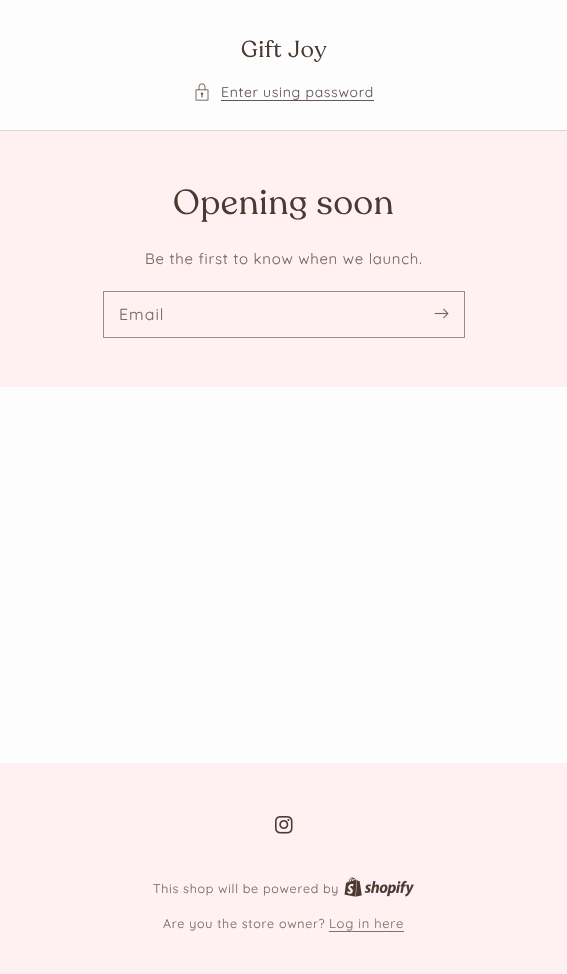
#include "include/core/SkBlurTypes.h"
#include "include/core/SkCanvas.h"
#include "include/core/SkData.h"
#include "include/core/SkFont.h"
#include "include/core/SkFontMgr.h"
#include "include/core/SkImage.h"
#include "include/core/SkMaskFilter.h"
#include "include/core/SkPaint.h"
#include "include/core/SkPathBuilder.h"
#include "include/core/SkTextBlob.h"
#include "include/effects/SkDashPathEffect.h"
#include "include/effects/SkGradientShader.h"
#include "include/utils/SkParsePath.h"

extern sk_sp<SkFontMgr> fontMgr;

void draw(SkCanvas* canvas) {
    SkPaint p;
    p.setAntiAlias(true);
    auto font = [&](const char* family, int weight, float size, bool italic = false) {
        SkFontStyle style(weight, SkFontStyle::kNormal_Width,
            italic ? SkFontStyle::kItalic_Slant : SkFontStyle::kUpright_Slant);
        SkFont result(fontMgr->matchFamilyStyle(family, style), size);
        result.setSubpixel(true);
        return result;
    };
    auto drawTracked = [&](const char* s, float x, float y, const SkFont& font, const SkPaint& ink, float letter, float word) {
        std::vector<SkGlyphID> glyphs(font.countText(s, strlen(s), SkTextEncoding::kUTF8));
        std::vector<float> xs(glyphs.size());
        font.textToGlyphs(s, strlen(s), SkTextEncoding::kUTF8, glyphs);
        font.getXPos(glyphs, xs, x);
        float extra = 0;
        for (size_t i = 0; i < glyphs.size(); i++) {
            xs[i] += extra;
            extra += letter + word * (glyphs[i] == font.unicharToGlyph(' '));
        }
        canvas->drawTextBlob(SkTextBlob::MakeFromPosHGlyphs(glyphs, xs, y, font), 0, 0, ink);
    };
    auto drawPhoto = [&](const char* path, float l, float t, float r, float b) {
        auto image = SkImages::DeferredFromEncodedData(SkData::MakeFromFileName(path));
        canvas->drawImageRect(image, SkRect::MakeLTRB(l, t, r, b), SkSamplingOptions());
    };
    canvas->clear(0xFFFDFDFD);
    auto font1 = font("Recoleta", 400, 23);
    p.setColor(0xFF4B3932);
    drawTracked("Gift Joy", 241, 57, font1, p, 0.75f, 0);
    drawPhoto("media/1.png", 195, 83, 209, 101);
    auto font2 = font("Quicksand", 400, 14);
    p.setColor(0xFF665650);
    drawTracked("Enter using password", 221, 97, font2, p, 0.7f, 0);
    {
        const struct { float l, t, r, b; SkColor color; } items[] = {
            {221, 100, 374, 101, 0xFF665650},
            {0, 130, 567, 131, 0xFFD9D6D4},
            {0, 131, 567, 387, 0xFFFFF1F1},
        };
        for (auto [l, t, r, b, color] : items) {
            p.setColor(color);
            canvas->drawRect(SkRect::MakeLTRB(l, t, r, b), p);
        }
    }
    auto font3 = font("Recoleta", 400, 34.5f);
    p.setColor(0xFF4B3932);
    drawTracked("Opening soon", 173, 214, font3, p, 0.75f, 0);
    auto font4 = font("Quicksand", 400, 15);
    p.setColor(0xFF786762);
    drawTracked("Be the first to know when we launch.", 145, 264, font4, p, 0.7f, 0);
    p.setStyle(SkPaint::kStroke_Style);
    p.setStrokeWidth(1);
    p.setColor(0xFF9C8C88);
    canvas->drawRect(SkRect::MakeLTRB(103.5f, 291.5f, 464.5f, 337.5f), p);
    auto font5 = font("Quicksand", 400, 16);
    p.setStyle(SkPaint::kFill_Style);
    p.setColor(0xFF786762);
    drawTracked("Email", 119, 320, font5, p, 1, 0);
    drawPhoto("media/2.png", 434, 308, 449, 319);
    p.setColor(0xFFFFF1F1);
    canvas->drawRect(SkRect::MakeLTRB(0, 763, 567, 974), p);
    drawPhoto("media/3.png", 275, 816, 293, 834);
    auto font6 = font("Quicksand", 400, 12.5f);
    p.setColor(0xFF786762);
    drawTracked("This shop will be powered by", 153, 893, font6, p, 0.7f, 0);
    drawPhoto("media/4.png", 344, 877, 414, 897);
    drawTracked("Are you the store owner?", 163, 928, font6, p, 0.7f, 0);
    auto font7 = font("Quicksand", 400, 13);
    p.setColor(0xFF81706B);
    drawTracked("Log in here", 329, 928, font7, p, 0.7f, 0);
    canvas->drawRect(SkRect::MakeLTRB(329, 931, 404, 932), p);
}
